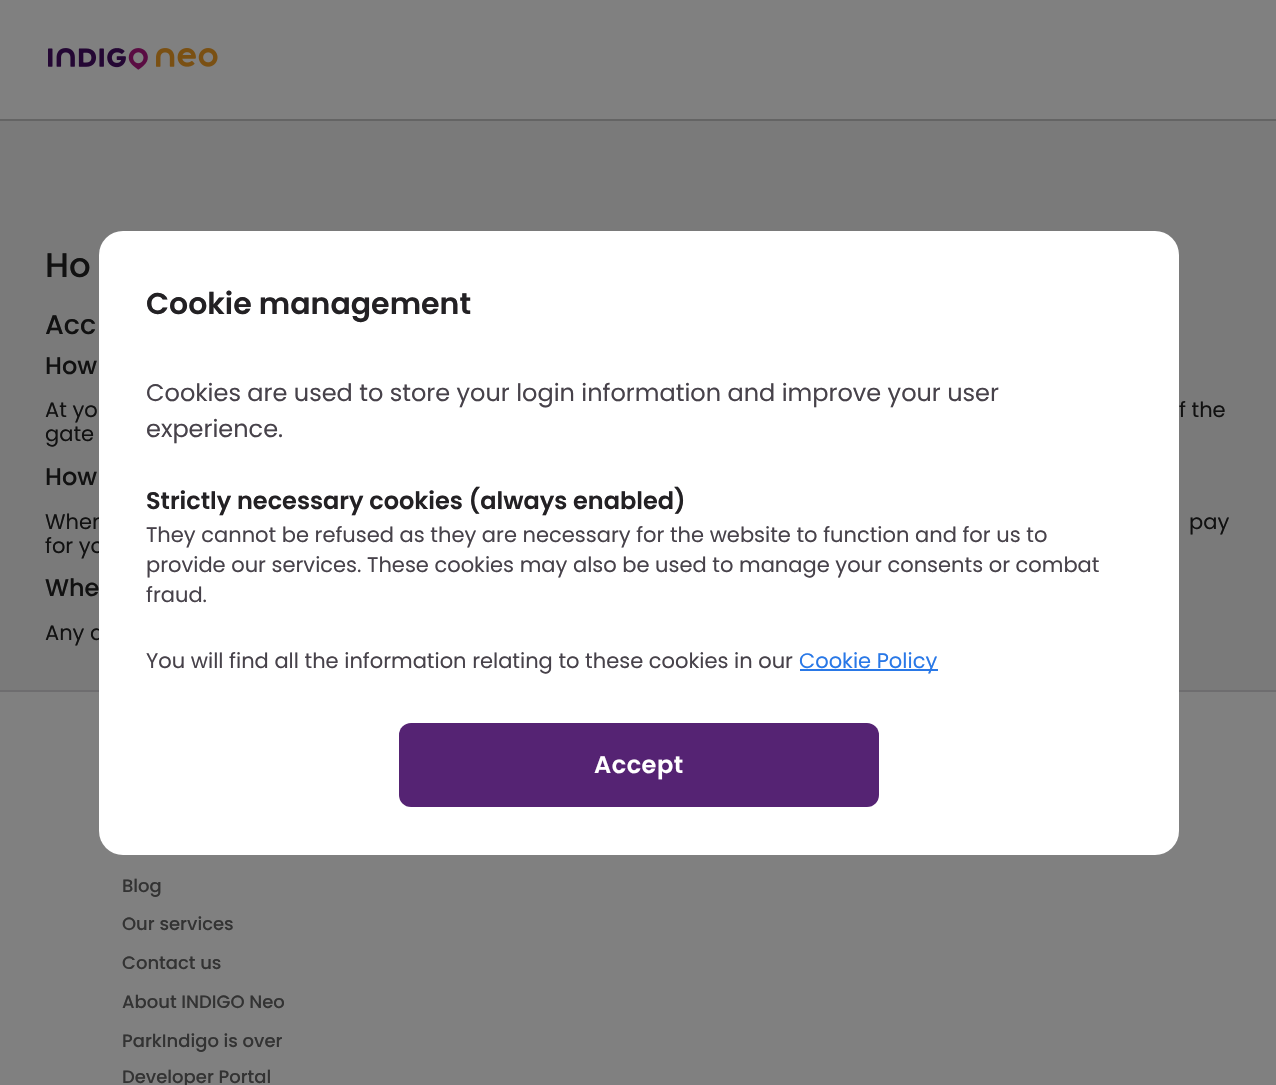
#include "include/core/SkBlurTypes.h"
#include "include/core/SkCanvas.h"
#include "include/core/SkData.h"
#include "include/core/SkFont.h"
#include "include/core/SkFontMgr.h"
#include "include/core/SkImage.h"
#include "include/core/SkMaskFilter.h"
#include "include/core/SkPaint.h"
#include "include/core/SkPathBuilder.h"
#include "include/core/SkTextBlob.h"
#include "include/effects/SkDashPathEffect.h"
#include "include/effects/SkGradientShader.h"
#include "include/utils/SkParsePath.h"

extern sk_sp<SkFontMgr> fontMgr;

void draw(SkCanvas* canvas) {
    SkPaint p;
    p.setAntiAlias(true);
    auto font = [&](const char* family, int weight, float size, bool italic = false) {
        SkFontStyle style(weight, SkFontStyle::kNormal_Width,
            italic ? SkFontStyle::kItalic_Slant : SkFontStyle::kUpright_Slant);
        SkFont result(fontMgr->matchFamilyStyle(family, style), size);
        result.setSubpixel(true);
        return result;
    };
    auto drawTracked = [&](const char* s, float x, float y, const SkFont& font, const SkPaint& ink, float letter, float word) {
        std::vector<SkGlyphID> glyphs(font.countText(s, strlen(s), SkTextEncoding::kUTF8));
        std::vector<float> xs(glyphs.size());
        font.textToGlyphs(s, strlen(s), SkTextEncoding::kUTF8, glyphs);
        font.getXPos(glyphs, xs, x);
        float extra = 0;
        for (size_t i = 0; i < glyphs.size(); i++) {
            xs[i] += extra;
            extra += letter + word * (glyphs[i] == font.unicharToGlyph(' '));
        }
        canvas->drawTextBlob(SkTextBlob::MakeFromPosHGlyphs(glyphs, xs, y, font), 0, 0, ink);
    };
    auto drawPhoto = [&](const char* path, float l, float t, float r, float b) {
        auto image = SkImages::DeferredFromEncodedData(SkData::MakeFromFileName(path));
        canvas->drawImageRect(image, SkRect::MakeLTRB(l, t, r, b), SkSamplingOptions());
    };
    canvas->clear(0xFF808080);
    p.setColor(0xFF7A7A7A);
    canvas->drawRect(SkRect::MakeLTRB(0, 121, 1276, 690), p);
    p.setColor(0xFF646464);
    canvas->drawRect(SkRect::MakeLTRB(0, 119, 1276, 121), p);
    drawPhoto("media/1.png", 48, 48, 218, 70);
    auto font1 = font("Poppins", 500, 34);
    p.setColor(0xFF111111);
    canvas->drawString("Ho", 45, 277, font1, p);
    auto font2 = font("Poppins", 500, 27);
    canvas->drawString("Acc", 45, 334, font2, p);
    auto font3 = font("Poppins", 500, 24);
    canvas->drawString("How", 45, 374, font3, p);
    auto font4 = font("Poppins", 400, 21);
    {
        const struct { const char* s; float x, y; } items[] = {
            {"At yo", 45, 417},
            {"f the", 1179, 417},
            {"gate", 45, 441},
        };
        for (auto [s, x, y] : items) {
            canvas->drawString(s, x, y, font4, p);
        }
    }
    canvas->drawString("How", 45, 485, font3, p);
    {
        const struct { const char* s; float x, y; } items[] = {
            {"When", 45, 529},
            {"pay", 1189, 529},
            {"for yo", 45, 553},
        };
        for (auto [s, x, y] : items) {
            canvas->drawString(s, x, y, font4, p);
        }
    }
    canvas->drawString("Whe", 45, 596, font3, p);
    canvas->drawString("Any a", 45, 640, font4, p);
    p.setColor(0xFF6E6D6F);
    canvas->drawRect(SkRect::MakeLTRB(0, 690, 1276, 692), p);
    auto font5 = font("Poppins", 500, 18);
    p.setColor(0xFF333333);
    {
        const struct { const char* s; float x, y; } items[] = {
            {"Blog", 122, 892},
            {"Our services", 122, 930},
            {"Contact us", 122, 969},
            {"About INDIGO Neo", 122, 1008},
            {"ParkIndigo is over", 122, 1047},
            {"Developer Portal", 122, 1083},
        };
        for (auto [s, x, y] : items) {
            canvas->drawString(s, x, y, font5, p);
        }
    }
    p.setColor(0xFFFFFFFF);
    canvas->drawRoundRect(SkRect::MakeLTRB(99, 231, 1179, 855), 24, 24, p);
    auto font6 = font("Poppins", 600, 30);
    p.setColor(0xFF232124);
    canvas->drawString("Cookie management", 146, 314, font6, p);
    auto font7 = font("Poppins", 400, 24);
    p.setColor(0xFF47424A);
    canvas->drawString("Cookies are used to store your login information and improve your user", 146, 401, font7, p);
    canvas->drawString("experience.", 146, 437, font7, p);
    auto font8 = font("Poppins", 600, 24);
    p.setColor(0xFF232124);
    canvas->drawString("Strictly necessary cookies (always enabled)", 146, 509, font8, p);
    p.setColor(0xFF47424A);
    {
        const struct { const char* s; float x, y; } items[] = {
            {"They cannot be refused as they are necessary for the website to function and for us to", 146, 542},
            {"provide our services. These cookies may also be used to manage your consents or combat", 146, 572},
            {"fraud.", 146, 602},
            {"You will find all the information relating to these cookies in our", 146, 668},
        };
        for (auto [s, x, y] : items) {
            canvas->drawString(s, x, y, font4, p);
        }
    }
    p.setColor(0xFF2978E7);
    canvas->drawRect(SkRect::MakeLTRB(800, 669, 938, 671), p);
    canvas->drawString("Cookie Policy", 799, 668, font4, p);
    p.setColor(0xFF552373);
    canvas->drawRoundRect(SkRect::MakeLTRB(399, 723, 879, 807), 12, 12, p);
    p.setColor(0xFFFFFFFF);
    drawTracked("Accept", 594, 773, font8, p, 0.5f, 0);
}
